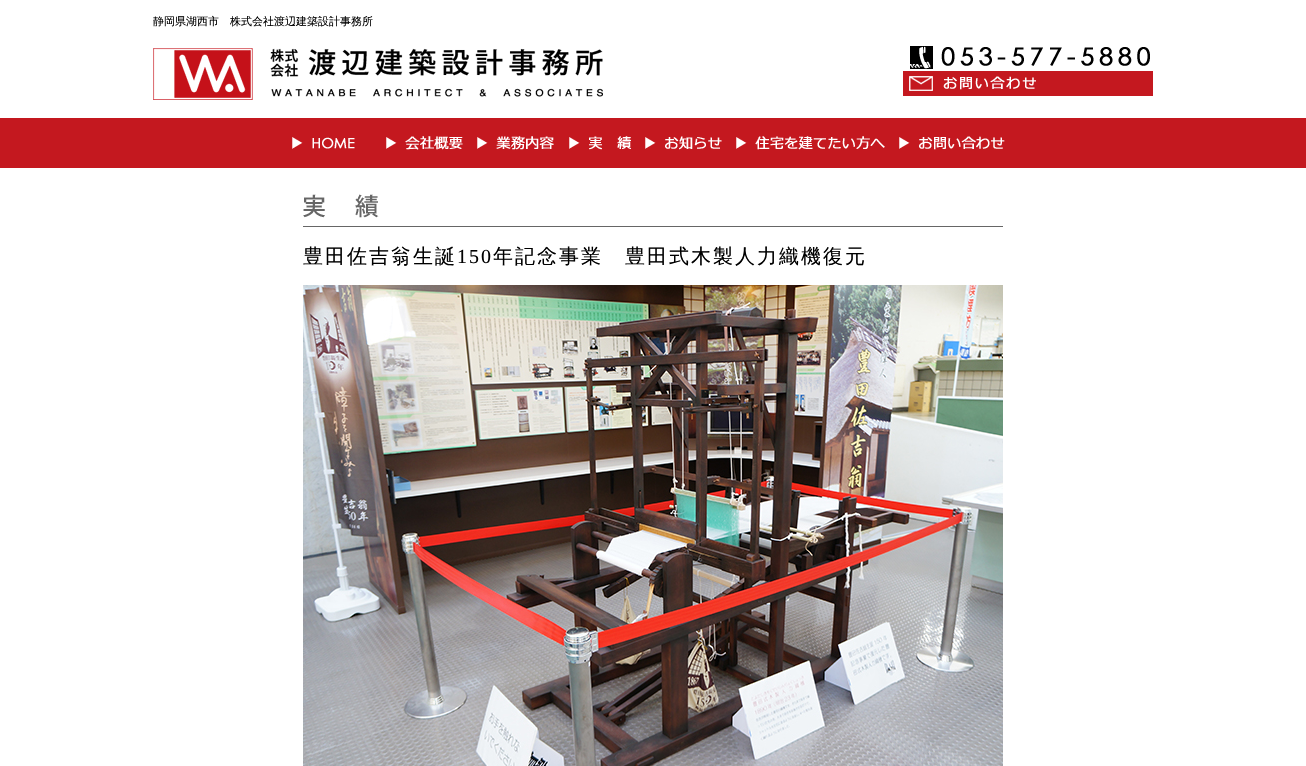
#include "include/core/SkBlurTypes.h"
#include "include/core/SkCanvas.h"
#include "include/core/SkData.h"
#include "include/core/SkFont.h"
#include "include/core/SkFontMgr.h"
#include "include/core/SkImage.h"
#include "include/core/SkMaskFilter.h"
#include "include/core/SkPaint.h"
#include "include/core/SkPathBuilder.h"
#include "include/core/SkTextBlob.h"
#include "include/effects/SkDashPathEffect.h"
#include "include/effects/SkGradientShader.h"
#include "include/utils/SkParsePath.h"

extern sk_sp<SkFontMgr> fontMgr;

void draw(SkCanvas* canvas) {
    SkPaint p;
    p.setAntiAlias(true);
    auto font = [&](const char* family, int weight, float size, bool italic = false) {
        SkFontStyle style(weight, SkFontStyle::kNormal_Width,
            italic ? SkFontStyle::kItalic_Slant : SkFontStyle::kUpright_Slant);
        SkFont result(fontMgr->matchFamilyStyle(family, style), size);
        result.setSubpixel(true);
        return result;
    };
    auto drawTracked = [&](const char* s, float x, float y, const SkFont& font, const SkPaint& ink, float letter, float word) {
        std::vector<SkGlyphID> glyphs(font.countText(s, strlen(s), SkTextEncoding::kUTF8));
        std::vector<float> xs(glyphs.size());
        font.textToGlyphs(s, strlen(s), SkTextEncoding::kUTF8, glyphs);
        font.getXPos(glyphs, xs, x);
        float extra = 0;
        for (size_t i = 0; i < glyphs.size(); i++) {
            xs[i] += extra;
            extra += letter + word * (glyphs[i] == font.unicharToGlyph(' '));
        }
        canvas->drawTextBlob(SkTextBlob::MakeFromPosHGlyphs(glyphs, xs, y, font), 0, 0, ink);
    };
    auto drawPhoto = [&](const char* path, float l, float t, float r, float b) {
        auto image = SkImages::DeferredFromEncodedData(SkData::MakeFromFileName(path));
        canvas->drawImageRect(image, SkRect::MakeLTRB(l, t, r, b), SkSamplingOptions());
    };
    canvas->clear(0xFFFFFFFF);
    auto font1 = font("WenQuanYi Zen Hei", 500, 11);
    p.setColor(0xFF000000);
    canvas->drawString("静岡県湖西市　株式会社渡辺建築設計事務所", 153, 25, font1, p);
    drawPhoto("media/1.png", 153, 48, 603, 100);
    drawPhoto("media/2.png", 903, 46, 1153, 96);
    p.setColor(0xFFC4181F);
    canvas->drawRect(SkRect::MakeLTRB(0, 118, 1306, 168), p);
    drawPhoto("media/3.png", 292, 137, 355, 149);
    drawPhoto("media/4.png", 386, 136, 463, 150);
    drawPhoto("media/5.png", 477, 136, 554, 150);
    drawPhoto("media/6.png", 569, 136, 631, 150);
    drawPhoto("media/7.png", 645, 136, 722, 150);
    drawPhoto("media/8.png", 736, 136, 885, 150);
    drawPhoto("media/9.png", 899, 136, 1005, 150);
    drawPhoto("media/10.png", 303, 194, 379, 218);
    p.setColor(0xFF666666);
    canvas->drawRect(SkRect::MakeLTRB(303, 226, 1003, 227), p);
    auto font2 = font("WenQuanYi Zen Hei", 500, 20);
    p.setColor(0xFF000000);
    drawTracked("豊田佐吉翁生誕", 303, 263, font2, p, 2, 0);
    auto font3 = font("Liberation Serif", 400, 20);
    drawTracked("150", 457, 263, font3, p, 2, 0);
    drawTracked("年記念事業　豊田式木製人力織機復元", 493, 263, font2, p, 2, 0);
    drawPhoto("media/11.png", 303, 285, 1003, 766);
}
